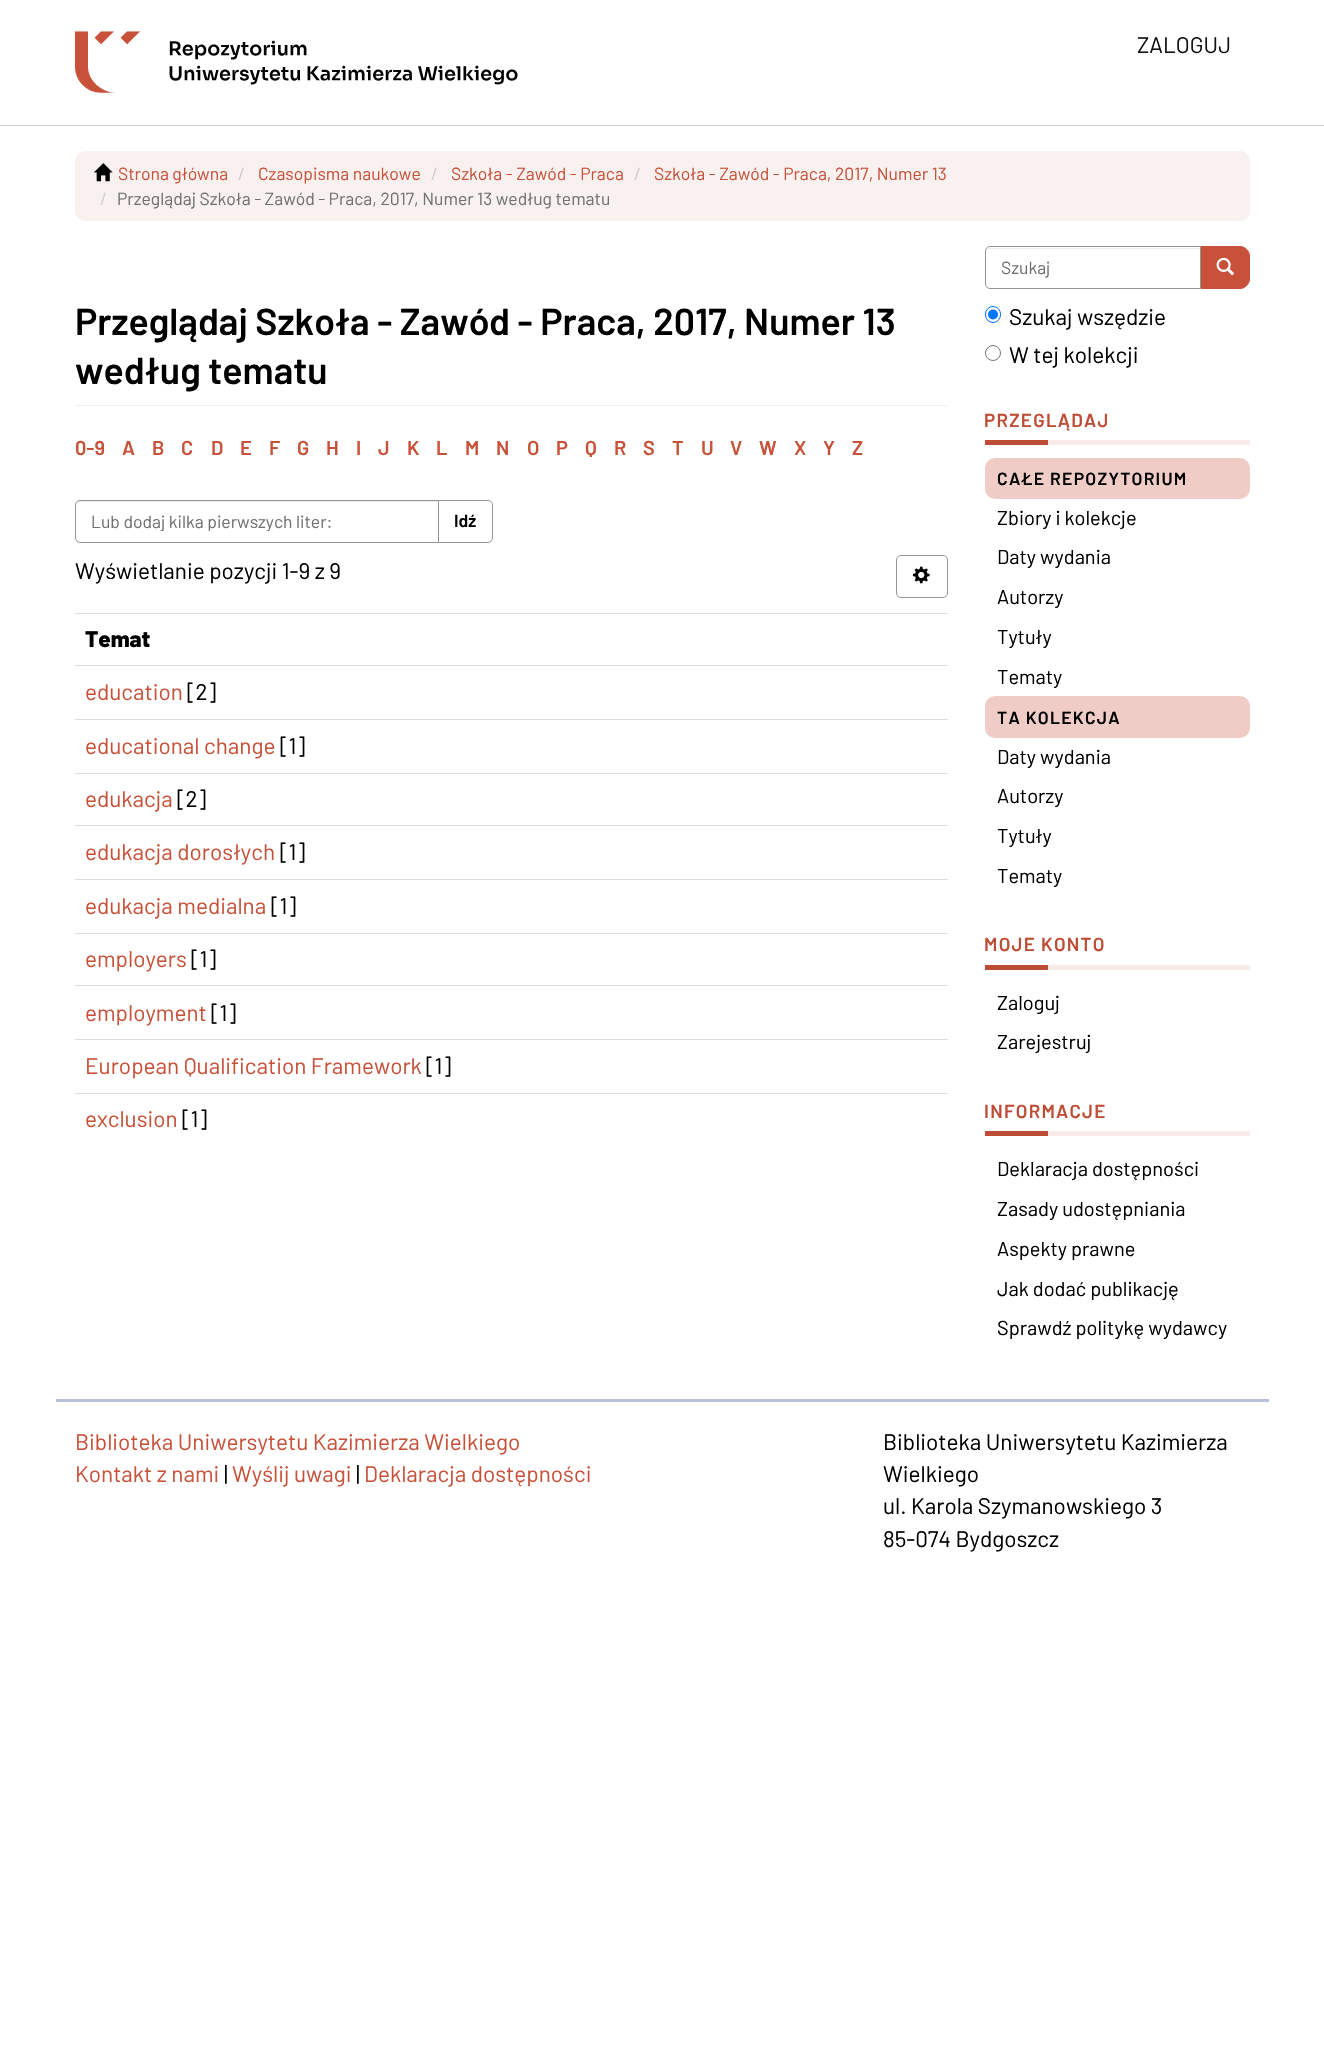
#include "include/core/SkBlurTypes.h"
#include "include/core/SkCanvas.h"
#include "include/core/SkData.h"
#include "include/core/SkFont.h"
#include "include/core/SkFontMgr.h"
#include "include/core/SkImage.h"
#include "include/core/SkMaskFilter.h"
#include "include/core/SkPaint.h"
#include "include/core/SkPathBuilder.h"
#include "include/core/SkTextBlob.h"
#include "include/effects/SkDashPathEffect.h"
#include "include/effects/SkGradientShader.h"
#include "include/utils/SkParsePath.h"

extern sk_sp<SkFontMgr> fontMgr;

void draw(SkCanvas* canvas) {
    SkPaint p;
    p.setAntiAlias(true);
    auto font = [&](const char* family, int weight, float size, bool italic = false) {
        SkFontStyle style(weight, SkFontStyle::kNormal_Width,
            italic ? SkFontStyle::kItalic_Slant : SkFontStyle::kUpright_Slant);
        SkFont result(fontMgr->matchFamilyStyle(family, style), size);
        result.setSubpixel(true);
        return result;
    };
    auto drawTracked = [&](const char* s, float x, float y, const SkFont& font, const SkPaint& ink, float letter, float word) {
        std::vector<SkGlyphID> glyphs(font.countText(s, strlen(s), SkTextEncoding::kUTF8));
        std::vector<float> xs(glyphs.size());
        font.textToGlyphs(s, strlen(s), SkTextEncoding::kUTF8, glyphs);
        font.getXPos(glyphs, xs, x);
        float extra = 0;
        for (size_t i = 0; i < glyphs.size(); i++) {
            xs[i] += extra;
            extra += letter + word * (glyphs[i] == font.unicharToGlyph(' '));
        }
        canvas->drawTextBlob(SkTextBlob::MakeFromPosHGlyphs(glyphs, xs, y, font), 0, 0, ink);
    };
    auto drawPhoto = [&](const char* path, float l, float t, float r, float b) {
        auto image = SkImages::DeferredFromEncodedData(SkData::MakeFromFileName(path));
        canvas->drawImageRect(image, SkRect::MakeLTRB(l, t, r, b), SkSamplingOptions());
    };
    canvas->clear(0xFFFFFFFF);
    p.setColor(0xFFCCCCCC);
    canvas->drawRect(SkRect::MakeLTRB(0, 125, 1324, 126), p);
    drawPhoto("media/1.png", 75, 31, 518, 93);
    auto font1 = font("Barlow", 400, 22.5f);
    p.setColor(0xFF111111);
    canvas->drawString("ZALOGUJ", 1137, 53, font1, p);
    p.setColor(0xFFF8F1F0);
    canvas->drawRoundRect(SkRect::MakeLTRB(75, 151, 1250, 221), 10, 10, p);
    drawPhoto("media/2.png", 93, 163, 113, 182);
    auto font2 = font("Barlow", 400, 17.5f);
    p.setColor(0xFFC75139);
    canvas->drawString("Strona główna", 118, 180, font2, p);
    p.setColor(0xFFCCCCCC);
    canvas->drawString("/", 238, 180, font2, p);
    p.setColor(0xFFC75139);
    canvas->drawString("Czasopisma naukowe", 258, 180, font2, p);
    p.setColor(0xFFCCCCCC);
    canvas->drawString("/", 431, 180, font2, p);
    p.setColor(0xFFC75139);
    canvas->drawString("Szkoła - Zawód - Praca", 451, 180, font2, p);
    p.setColor(0xFFCCCCCC);
    canvas->drawString("/", 634, 180, font2, p);
    p.setColor(0xFFC75139);
    canvas->drawString("Szkoła - Zawód - Praca, 2017, Numer 13", 654, 180, font2, p);
    p.setColor(0xFFCCCCCC);
    canvas->drawString("/", 100, 205, font2, p);
    p.setColor(0xFF707070);
    canvas->drawString("Przeglądaj Szkoła - Zawód - Praca, 2017, Numer 13 według tematu", 117, 205, font2, p);
    p.setColor(0xFFEEEEEE);
    canvas->drawRect(SkRect::MakeLTRB(75, 405, 948, 406), p);
    auto font3 = font("Barlow", 600, 37.5f);
    p.setColor(0xFF000000);
    canvas->drawString("Przeglądaj Szkoła - Zawód - Praca, 2017, Numer 13", 75, 335, font3, p);
    canvas->drawString("według tematu", 75, 384, font3, p);
    auto font4 = font("Barlow", 600, 20);
    p.setColor(0xFFC75139);
    {
        const struct { const char* s; float x, y; } items[] = {
            {"0-9", 75, 455},
            {"A", 122, 455},
            {"B", 152, 455},
            {"C", 181, 455},
            {"D", 211, 455},
            {"E", 240, 455},
            {"F", 269, 455},
            {"G", 297, 455},
            {"H", 326, 455},
            {"I", 356, 455},
            {"J", 378, 455},
            {"K", 407, 455},
            {"L", 436, 455},
            {"M", 465, 455},
            {"N", 496, 455},
            {"O", 527, 455},
            {"P", 556, 455},
            {"Q", 585, 455},
            {"R", 614, 455},
            {"S", 643, 455},
            {"T", 672, 455},
            {"U", 701, 455},
            {"V", 730, 455},
            {"W", 759, 455},
            {"X", 794, 455},
            {"Y", 823, 455},
            {"Z", 852, 455},
        };
        for (auto [s, x, y] : items) {
            canvas->drawString(s, x, y, font4, p);
        }
    }
    p.setStyle(SkPaint::kStroke_Style);
    p.setStrokeWidth(1);
    p.setColor(0xFF949494);
    canvas->drawPath(SkPathBuilder().moveTo(438.5f, 500.5f).lineTo(488, 500.5f).cubicTo(490.5f, 500.5f, 492.5f, 502.5f, 492.5f, 505).lineTo(492.5f, 538).cubicTo(492.5f, 540.5f, 490.5f, 542.5f, 488, 542.5f).lineTo(438.5f, 542.5f).close().detach(), p);
    p.setStyle(SkPaint::kFill_Style);
    p.setColor(0xFFFFFFFF);
    canvas->drawPath(SkPathBuilder().moveTo(80, 500).lineTo(439, 500).lineTo(439, 543).lineTo(80, 543).cubicTo(77, 543, 75, 541, 75, 538).lineTo(75, 505).cubicTo(75, 502, 77, 500, 80, 500).close().detach(), p);
    p.setColor(0xFFECECEC);
    canvas->drawPath(SkPathBuilder().moveTo(80, 502).lineTo(438, 502).lineTo(438, 501).lineTo(80, 501).cubicTo(77, 501, 76, 503, 76, 506).cubicTo(76, 504, 78, 502, 80, 502).close().detach(), p);
    p.setStyle(SkPaint::kStroke_Style);
    p.setColor(0xFF949494);
    canvas->drawPath(SkPathBuilder().moveTo(80, 500.5f).lineTo(438.5f, 500.5f).lineTo(438.5f, 542.5f).lineTo(80, 542.5f).cubicTo(77.5f, 542.5f, 75.5f, 540.5f, 75.5f, 538).lineTo(75.5f, 505).cubicTo(75.5f, 502.5f, 77.5f, 500.5f, 80, 500.5f).close().detach(), p);
    canvas->save();
    canvas->clipRect(SkRect::MakeLTRB(91, 510, 423, 531));
    p.setStyle(SkPaint::kFill_Style);
    p.setColor(0xFF707070);
    canvas->drawString("Lub dodaj kilka pierwszych liter:", 91, 528, font2, p);
    canvas->restore();
    auto font5 = font("Barlow", 600, 17.5f);
    p.setColor(0xFF000000);
    canvas->drawString("Idź", 454, 527, font5, p);
    canvas->drawString("Wyświetlanie pozycji 1-9 z 9", 75, 579, font1, p);
    p.setStyle(SkPaint::kStroke_Style);
    p.setColor(0xFF949494);
    canvas->drawRoundRect(SkRect::MakeLTRB(896.5f, 555.5f, 947.5f, 597.5f), 4.5f, 4.5f, p);
    drawPhoto("media/3.png", 912, 566, 930, 584);
    p.setStyle(SkPaint::kFill_Style);
    p.setColor(0xFFDDDDDD);
    canvas->drawRect(SkRect::MakeLTRB(75, 613, 948, 614), p);
    auto font6 = font("Barlow", 800, 22.5f);
    p.setColor(0xFF000000);
    canvas->drawString("Temat", 85, 647, font6, p);
    p.setColor(0xFFDDDDDD);
    canvas->drawRect(SkRect::MakeLTRB(75, 665, 948, 666), p);
    p.setColor(0xFFC75139);
    canvas->drawString("education", 85, 700, font1, p);
    p.setColor(0xFF000000);
    canvas->drawString("[2]", 187, 700, font1, p);
    p.setColor(0xFFDDDDDD);
    canvas->drawRect(SkRect::MakeLTRB(75, 719, 948, 720), p);
    p.setColor(0xFFC75139);
    canvas->drawString("educational change", 85, 754, font1, p);
    p.setColor(0xFF000000);
    canvas->drawString("[1]", 280, 754, font1, p);
    p.setColor(0xFFDDDDDD);
    canvas->drawRect(SkRect::MakeLTRB(75, 773, 948, 774), p);
    p.setColor(0xFFC75139);
    canvas->drawString("edukacja", 85, 807, font1, p);
    p.setColor(0xFF000000);
    canvas->drawString("[2]", 177, 807, font1, p);
    p.setColor(0xFFDDDDDD);
    canvas->drawRect(SkRect::MakeLTRB(75, 825, 948, 826), p);
    p.setColor(0xFFC75139);
    canvas->drawString("edukacja dorosłych", 85, 860, font1, p);
    p.setColor(0xFF000000);
    canvas->drawString("[1]", 280, 860, font1, p);
    p.setColor(0xFFDDDDDD);
    canvas->drawRect(SkRect::MakeLTRB(75, 879, 948, 880), p);
    p.setColor(0xFFC75139);
    canvas->drawString("edukacja medialna", 85, 914, font1, p);
    p.setColor(0xFF000000);
    canvas->drawString("[1]", 271, 914, font1, p);
    p.setColor(0xFFDDDDDD);
    canvas->drawRect(SkRect::MakeLTRB(75, 933, 948, 934), p);
    p.setColor(0xFFC75139);
    canvas->drawString("employers", 85, 967, font1, p);
    p.setColor(0xFF000000);
    canvas->drawString("[1]", 191, 967, font1, p);
    p.setColor(0xFFDDDDDD);
    canvas->drawRect(SkRect::MakeLTRB(75, 985, 948, 986), p);
    p.setColor(0xFFC75139);
    canvas->drawString("employment", 85, 1021, font1, p);
    p.setColor(0xFF000000);
    canvas->drawString("[1]", 211, 1021, font1, p);
    p.setColor(0xFFDDDDDD);
    canvas->drawRect(SkRect::MakeLTRB(75, 1039, 948, 1040), p);
    p.setColor(0xFFC75139);
    canvas->drawString("European Qualification Framework", 85, 1074, font1, p);
    p.setColor(0xFF000000);
    canvas->drawString("[1]", 426, 1074, font1, p);
    p.setColor(0xFFDDDDDD);
    canvas->drawRect(SkRect::MakeLTRB(75, 1093, 948, 1094), p);
    p.setColor(0xFFC75139);
    canvas->drawString("exclusion", 85, 1127, font1, p);
    p.setColor(0xFF000000);
    canvas->drawString("[1]", 182, 1127, font1, p);
    p.setColor(0xFFC75139);
    canvas->drawPath(SkPathBuilder().moveTo(1200.5f, 246.5f).lineTo(1240, 246.5f).cubicTo(1245, 246.5f, 1249.5f, 251, 1249.5f, 256).lineTo(1249.5f, 279).cubicTo(1249.5f, 284, 1245, 288.5f, 1240, 288.5f).lineTo(1200.5f, 288.5f).close().detach(), p);
    p.setStyle(SkPaint::kStroke_Style);
    canvas->drawPath(SkPathBuilder().moveTo(1200.5f, 246.5f).lineTo(1240, 246.5f).cubicTo(1245, 246.5f, 1249.5f, 251, 1249.5f, 256).lineTo(1249.5f, 279).cubicTo(1249.5f, 284, 1245, 288.5f, 1240, 288.5f).lineTo(1200.5f, 288.5f).close().detach(), p);
    p.setStyle(SkPaint::kFill_Style);
    p.setColor(0xFFFFFFFF);
    canvas->drawPath(SkPathBuilder().moveTo(990, 246).lineTo(1201, 246).lineTo(1201, 289).lineTo(990, 289).cubicTo(987, 289, 985, 287, 985, 284).lineTo(985, 251).cubicTo(985, 248, 987, 246, 990, 246).close().detach(), p);
    p.setColor(0xFFECECEC);
    canvas->drawPath(SkPathBuilder().moveTo(990, 249).lineTo(1200, 249).lineTo(1200, 248).lineTo(990, 248).cubicTo(988, 248, 986, 250, 986, 252).cubicTo(986, 250, 988, 249, 990, 249).close().detach(), p);
    p.setStyle(SkPaint::kStroke_Style);
    p.setColor(0xFF949494);
    canvas->drawPath(SkPathBuilder().moveTo(990, 246.5f).lineTo(1200.5f, 246.5f).lineTo(1200.5f, 288.5f).lineTo(990, 288.5f).cubicTo(987.5f, 288.5f, 985.5f, 286.5f, 985.5f, 284).lineTo(985.5f, 251).cubicTo(985.5f, 248.5f, 987.5f, 246.5f, 990, 246.5f).close().detach(), p);
    p.setStyle(SkPaint::kFill_Style);
    p.setColor(0xFF707070);
    canvas->drawString("Szukaj", 1001, 274, font2, p);
    drawPhoto("media/4.png", 1216, 257, 1234, 276);
    p.setStyle(SkPaint::kStroke_Style);
    p.setColor(0xFF0075FF);
    canvas->drawRoundRect(SkRect::MakeLTRB(985.5f, 306.5f, 1000.5f, 322.5f), 7.5f, 7.5f, p);
    p.setStyle(SkPaint::kFill_Style);
    canvas->drawCircle(993, 314.5f, 5, p);
    p.setColor(0xFF000000);
    canvas->drawString("Szukaj wszędzie", 1009, 325, font1, p);
    p.setStyle(SkPaint::kStroke_Style);
    p.setColor(0xFF767676);
    canvas->drawCircle(993, 353, 7.5f, p);
    p.setStyle(SkPaint::kFill_Style);
    p.setColor(0xFF000000);
    canvas->drawString("W tej kolekcji", 1009, 363, font1, p);
    p.setColor(0xFFF7EBE8);
    canvas->drawRect(SkRect::MakeLTRB(1048, 440, 1250, 445), p);
    auto font7 = font("Barlow", 600, 18.75f);
    p.setColor(0xFFBE4D35);
    drawTracked("PRZEGLĄDAJ", 984, 427, font7, p, 1.25f, 0);
    canvas->drawRect(SkRect::MakeLTRB(985, 440, 1048, 445), p);
    p.setColor(0xFFEFCDC6);
    canvas->drawRoundRect(SkRect::MakeLTRB(985, 458, 1250, 499), 10, 10, p);
    p.setColor(0xFF000000);
    drawTracked("CAŁE REPOZYTORIUM", 997, 485, font5, p, 1.25f, 0);
    auto font8 = font("Barlow", 400, 20);
    {
        const struct { const char* s; float x, y; } items[] = {
            {"Zbiory i kolekcje", 997, 525},
            {"Daty wydania", 997, 564},
            {"Autorzy", 997, 604},
            {"Tytuły", 997, 644},
            {"Tematy", 997, 684},
        };
        for (auto [s, x, y] : items) {
            canvas->drawString(s, x, y, font8, p);
        }
    }
    p.setColor(0xFFEFCDC6);
    canvas->drawRoundRect(SkRect::MakeLTRB(985, 696, 1250, 738), 10, 10, p);
    p.setColor(0xFF000000);
    drawTracked("TA KOLEKCJA", 997, 724, font5, p, 1.25f, 0);
    {
        const struct { const char* s; float x, y; } items[] = {
            {"Daty wydania", 997, 764},
            {"Autorzy", 997, 803},
            {"Tytuły", 997, 843},
            {"Tematy", 997, 883},
        };
        for (auto [s, x, y] : items) {
            canvas->drawString(s, x, y, font8, p);
        }
    }
    p.setColor(0xFFF7EBE8);
    canvas->drawRect(SkRect::MakeLTRB(1048, 965, 1250, 970), p);
    p.setColor(0xFFBE4D35);
    drawTracked("MOJE KONTO", 984, 951, font7, p, 1.25f, 0);
    canvas->drawRect(SkRect::MakeLTRB(985, 965, 1048, 970), p);
    p.setColor(0xFF000000);
    canvas->drawString("Zaloguj", 997, 1010, font8, p);
    canvas->drawString("Zarejestruj", 997, 1049, font8, p);
    p.setColor(0xFFF7EBE8);
    canvas->drawRect(SkRect::MakeLTRB(1048, 1131, 1250, 1136), p);
    p.setColor(0xFFBE4D35);
    drawTracked("INFORMACJE", 984, 1118, font7, p, 1.25f, 0);
    canvas->drawRect(SkRect::MakeLTRB(985, 1131, 1048, 1136), p);
    p.setColor(0xFF000000);
    {
        const struct { const char* s; float x, y; } items[] = {
            {"Deklaracja dostępności", 997, 1176},
            {"Zasady udostępniania", 997, 1216},
            {"Aspekty prawne", 997, 1256},
            {"Jak dodać publikację", 997, 1296},
            {"Sprawdź politykę wydawcy", 997, 1335},
        };
        for (auto [s, x, y] : items) {
            canvas->drawString(s, x, y, font8, p);
        }
    }
    p.setColor(0xFFBABFDA);
    canvas->drawRect(SkRect::MakeLTRB(56, 1399, 1269, 1402), p);
    p.setColor(0xFFC75139);
    canvas->drawString("Biblioteka Uniwersytetu Kazimierza Wielkiego", 75, 1450, font1, p);
    canvas->drawString("Kontakt z nami", 75, 1482, font1, p);
    p.setColor(0xFF000000);
    canvas->drawString("|", 224, 1482, font1, p);
    p.setColor(0xFFC75139);
    canvas->drawString("Wyślij uwagi", 232, 1482, font1, p);
    p.setColor(0xFF000000);
    canvas->drawString("|", 356, 1482, font1, p);
    p.setColor(0xFFC75139);
    canvas->drawString("Deklaracja dostępności", 364, 1482, font1, p);
    p.setColor(0xFF000000);
    {
        const struct { const char* s; float x, y; } items[] = {
            {"Biblioteka Uniwersytetu Kazimierza", 883, 1450},
            {"Wielkiego", 883, 1482},
            {"ul. Karola Szymanowskiego 3", 883, 1514},
            {"85-074 Bydgoszcz", 883, 1547},
        };
        for (auto [s, x, y] : items) {
            canvas->drawString(s, x, y, font1, p);
        }
    }
}
